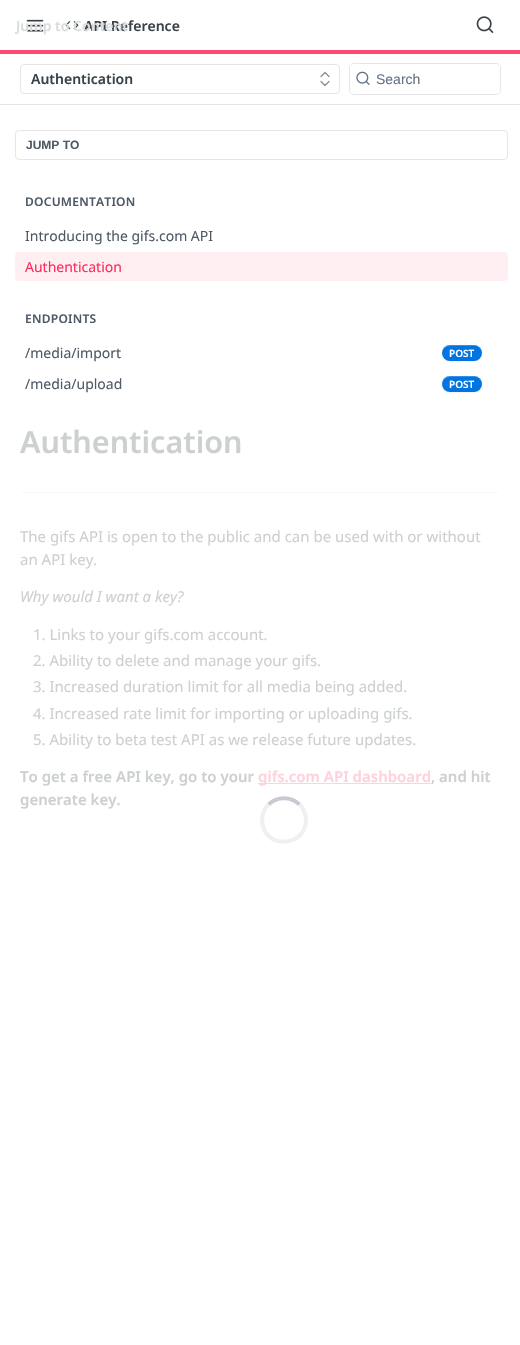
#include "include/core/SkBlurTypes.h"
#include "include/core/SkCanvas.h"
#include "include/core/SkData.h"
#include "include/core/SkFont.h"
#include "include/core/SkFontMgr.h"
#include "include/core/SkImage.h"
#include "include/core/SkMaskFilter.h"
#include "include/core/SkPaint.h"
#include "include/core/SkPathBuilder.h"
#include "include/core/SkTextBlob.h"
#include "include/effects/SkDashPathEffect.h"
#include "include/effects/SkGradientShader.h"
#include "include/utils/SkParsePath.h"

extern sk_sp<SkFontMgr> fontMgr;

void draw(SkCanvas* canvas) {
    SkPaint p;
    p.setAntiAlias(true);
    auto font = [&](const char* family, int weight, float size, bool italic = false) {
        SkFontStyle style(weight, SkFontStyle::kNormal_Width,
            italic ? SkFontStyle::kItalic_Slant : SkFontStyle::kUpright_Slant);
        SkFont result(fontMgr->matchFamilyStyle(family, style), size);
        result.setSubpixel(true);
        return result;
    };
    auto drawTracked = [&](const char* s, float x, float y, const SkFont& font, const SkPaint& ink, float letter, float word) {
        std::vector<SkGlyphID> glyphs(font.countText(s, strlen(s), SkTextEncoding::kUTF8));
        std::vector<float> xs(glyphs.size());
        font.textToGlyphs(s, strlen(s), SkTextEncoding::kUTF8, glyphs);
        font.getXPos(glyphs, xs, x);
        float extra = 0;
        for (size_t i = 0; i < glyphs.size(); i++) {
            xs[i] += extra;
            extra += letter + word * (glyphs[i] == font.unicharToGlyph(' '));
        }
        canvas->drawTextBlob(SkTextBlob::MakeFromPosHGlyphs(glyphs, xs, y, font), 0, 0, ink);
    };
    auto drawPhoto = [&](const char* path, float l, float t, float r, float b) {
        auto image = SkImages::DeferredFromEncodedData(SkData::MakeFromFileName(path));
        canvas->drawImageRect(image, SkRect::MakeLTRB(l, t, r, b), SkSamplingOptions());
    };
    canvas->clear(0xFFFFFFFF);
    p.setColor(0xFFE6E6E6);
    canvas->drawRect(SkRect::MakeLTRB(0, 104, 520, 105), p);
    p.setColor(0xFFFF4771);
    canvas->drawRect(SkRect::MakeLTRB(0, 50, 520, 54), p);
    drawPhoto("media/1.png", 26, 19, 44, 32);
    drawPhoto("media/2.png", 65, 21, 79, 30);
    auto font1 = font("Noto Sans", 600, 14);
    p.setColor(0xFF384248);
    canvas->drawString("API Reference", 84, 31, font1, p);
    p.setColor(0xFFD9DBDC);
    canvas->drawString("Jump to Content", 16, 31, font1, p);
    drawPhoto("media/3.png", 476, 16, 494, 33);
    p.setStyle(SkPaint::kStroke_Style);
    p.setStrokeWidth(1);
    p.setColor(0xFFE6E6E6);
    canvas->drawRoundRect(SkRect::MakeLTRB(20.5f, 64.5f, 339.5f, 93.5f), 3.5f, 3.5f, p);
    p.setStyle(SkPaint::kFill_Style);
    p.setColor(0xFF384248);
    canvas->drawString("Authentication", 31, 84, font1, p);
    p.setStyle(SkPaint::kStroke_Style);
    p.setStrokeWidth(1.3f);
    p.setStrokeCap(SkPaint::kRound_Cap);
    p.setStrokeJoin(SkPaint::kRound_Join);
    p.setColor(0xFF888E91);
    canvas->drawPath(SkPathBuilder().moveTo(321, 81.5f).lineTo(325, 85.5f).lineTo(329, 81.5f).moveTo(329, 76.5f).lineTo(325, 72.5f).lineTo(321, 76.5f).detach(), p);
    p.setStrokeWidth(1);
    p.setStrokeCap(SkPaint::kButt_Cap);
    p.setStrokeJoin(SkPaint::kMiter_Join);
    p.setColor(0xFFE6E6E6);
    canvas->drawRoundRect(SkRect::MakeLTRB(349.5f, 63.5f, 500.5f, 94.5f), 4.5f, 4.5f, p);
    p.setStyle(SkPaint::kFill_Style);
    p.setColor(0xFFFFFFFF);
    canvas->drawRoundRect(SkRect::MakeLTRB(350, 64, 500, 94), 4, 4, p);
    drawPhoto("media/4.png", 356, 71, 370, 85);
    auto font2 = font("Liberation Sans", 400, 14);
    p.setColor(0xFF637288);
    canvas->drawString("Search", 376, 84, font2, p);
    p.setStyle(SkPaint::kStroke_Style);
    p.setColor(0xFFE6E6E6);
    canvas->drawRoundRect(SkRect::MakeLTRB(15.5f, 130.5f, 507.5f, 159.5f), 3.5f, 3.5f, p);
    auto font3 = font("Liberation Sans", 700, 12);
    p.setStyle(SkPaint::kFill_Style);
    p.setColor(0xFF4F5A66);
    canvas->drawString("JUMP TO", 26, 149, font3, p);
    auto font4 = font("Noto Sans", 600, 12);
    drawTracked("DOCUMENTATION", 25, 206, font4, p, 0.25f, 0);
    auto font5 = font("Noto Sans", 400, 14);
    canvas->drawString("Introducing the gifs.com API", 25, 241, font5, p);
    p.setColor(0xFFFFEEF2);
    canvas->drawRoundRect(SkRect::MakeLTRB(15, 252, 508, 281), 4, 4, p);
    p.setColor(0xFFFF2D5D);
    canvas->drawString("Authentication", 25, 272, font5, p);
    p.setColor(0xFF4F5A66);
    drawTracked("ENDPOINTS", 25, 323, font4, p, 0.25f, 0);
    canvas->drawString("/media/import", 25, 358, font5, p);
    p.setColor(0x0D000000);
    p.setMaskFilter(SkMaskFilter::MakeBlur(kNormal_SkBlurStyle, 1));
    canvas->drawRoundRect(SkRect::MakeLTRB(442, 346, 482, 362), 8, 8, p);
    p.setMaskFilter(nullptr);
    p.setColor(0xFF0074E1);
    canvas->drawRoundRect(SkRect::MakeLTRB(442, 345, 482, 361), 8, 8, p);
    p.setColor(0x33FFFFFF);
    canvas->drawPath(SkPathBuilder().moveTo(450, 346).lineTo(476, 346).cubicTo(479, 347, 481, 349, 482, 351.5f).cubicTo(481.5f, 348, 478, 345, 474, 345).lineTo(450, 345).cubicTo(445.5f, 345, 442, 348.5f, 442, 353).lineTo(442, 354.5f).cubicTo(442, 350.5f, 445, 346, 450, 346).close().detach(), p);
    auto font6 = font("Noto Sans", 600, 10);
    p.setColor(0xFFFFFFFF);
    canvas->drawString("POST", 449, 357, font6, p);
    p.setColor(0xFF4F5A66);
    canvas->drawString("/media/upload", 25, 389, font5, p);
    p.setColor(0x0D000000);
    p.setMaskFilter(SkMaskFilter::MakeBlur(kNormal_SkBlurStyle, 1));
    canvas->drawRoundRect(SkRect::MakeLTRB(442, 377, 482, 393), 8, 8, p);
    p.setMaskFilter(nullptr);
    p.setColor(0xFF0074E1);
    canvas->drawRoundRect(SkRect::MakeLTRB(442, 376, 482, 392), 8, 8, p);
    p.setColor(0x33FFFFFF);
    canvas->drawPath(SkPathBuilder().moveTo(450, 377).lineTo(476, 377).cubicTo(479, 378, 481, 380, 482, 382.5f).cubicTo(481.5f, 379, 478, 376, 474, 376).lineTo(450, 376).cubicTo(445.5f, 376, 442, 379.5f, 442, 384).lineTo(442, 385.5f).cubicTo(442, 381.5f, 445, 377, 450, 377).close().detach(), p);
    p.setColor(0xFFFFFFFF);
    canvas->drawString("POST", 449, 388, font6, p);
    p.setColor(0xFFF9F9F9);
    canvas->drawRect(SkRect::MakeLTRB(20, 492, 500, 493), p);
    auto font7 = font("Noto Sans", 600, 30.5f);
    p.setColor(0xFFCDD0D1);
    canvas->drawString("Authentication", 20, 453, font7, p);
    auto font8 = font("Noto Sans", 400, 15);
    canvas->drawString("The gifs API is open to the public and can be used with or without", 20, 542, font8, p);
    canvas->drawString("an API key.", 20, 565, font8, p);
    auto font9 = font("Noto Sans", 400, 15, true);
    canvas->drawString("Why would I want a key?", 20, 602, font9, p);
    {
        const struct { const char* s; float x, y; } items[] = {
            {"1. Links to your gifs.com account.", 33, 640},
            {"2. Ability to delete and manage your gifs.", 33, 666},
            {"3. Increased duration limit for all media being added.", 33, 692},
            {"4. Increased rate limit for importing or uploading gifs.", 33, 719},
            {"5. Ability to beta test API as we release future updates.", 33, 745},
        };
        for (auto [s, x, y] : items) {
            canvas->drawString(s, x, y, font8, p);
        }
    }
    auto font10 = font("Noto Sans", 600, 15);
    canvas->drawString("To get a free API key, go to your", 20, 782, font10, p);
    p.setColor(0xFFFFD1DC);
    canvas->drawRect(SkRect::MakeLTRB(258, 783, 431, 784), p);
    canvas->drawString("gifs.com API dashboard", 258, 782, font10, p);
    p.setColor(0xFFCDD0D1);
    canvas->drawString(", and hit", 431, 782, font10, p);
    canvas->drawString("generate key.", 20, 805, font10, p);
    p.setStyle(SkPaint::kStroke_Style);
    p.setStrokeWidth(4);
    p.setColor(0xFFC6CBD3);
    canvas->drawPath(SkPathBuilder().moveTo(268.5f, 804.5f).cubicTo(277, 796, 291, 796, 299.5f, 804.5f).detach(), p);
    p.setColor(0xFFF0F0F0);
    canvas->drawPath(SkPathBuilder().moveTo(299.5f, 804.5f).cubicTo(303.5f, 808.5f, 306, 814, 306, 820).cubicTo(306, 846, 267.5f, 850, 262.5f, 824.5f).cubicTo(261, 817, 263.5f, 809.5f, 268.5f, 804.5f).detach(), p);
}
